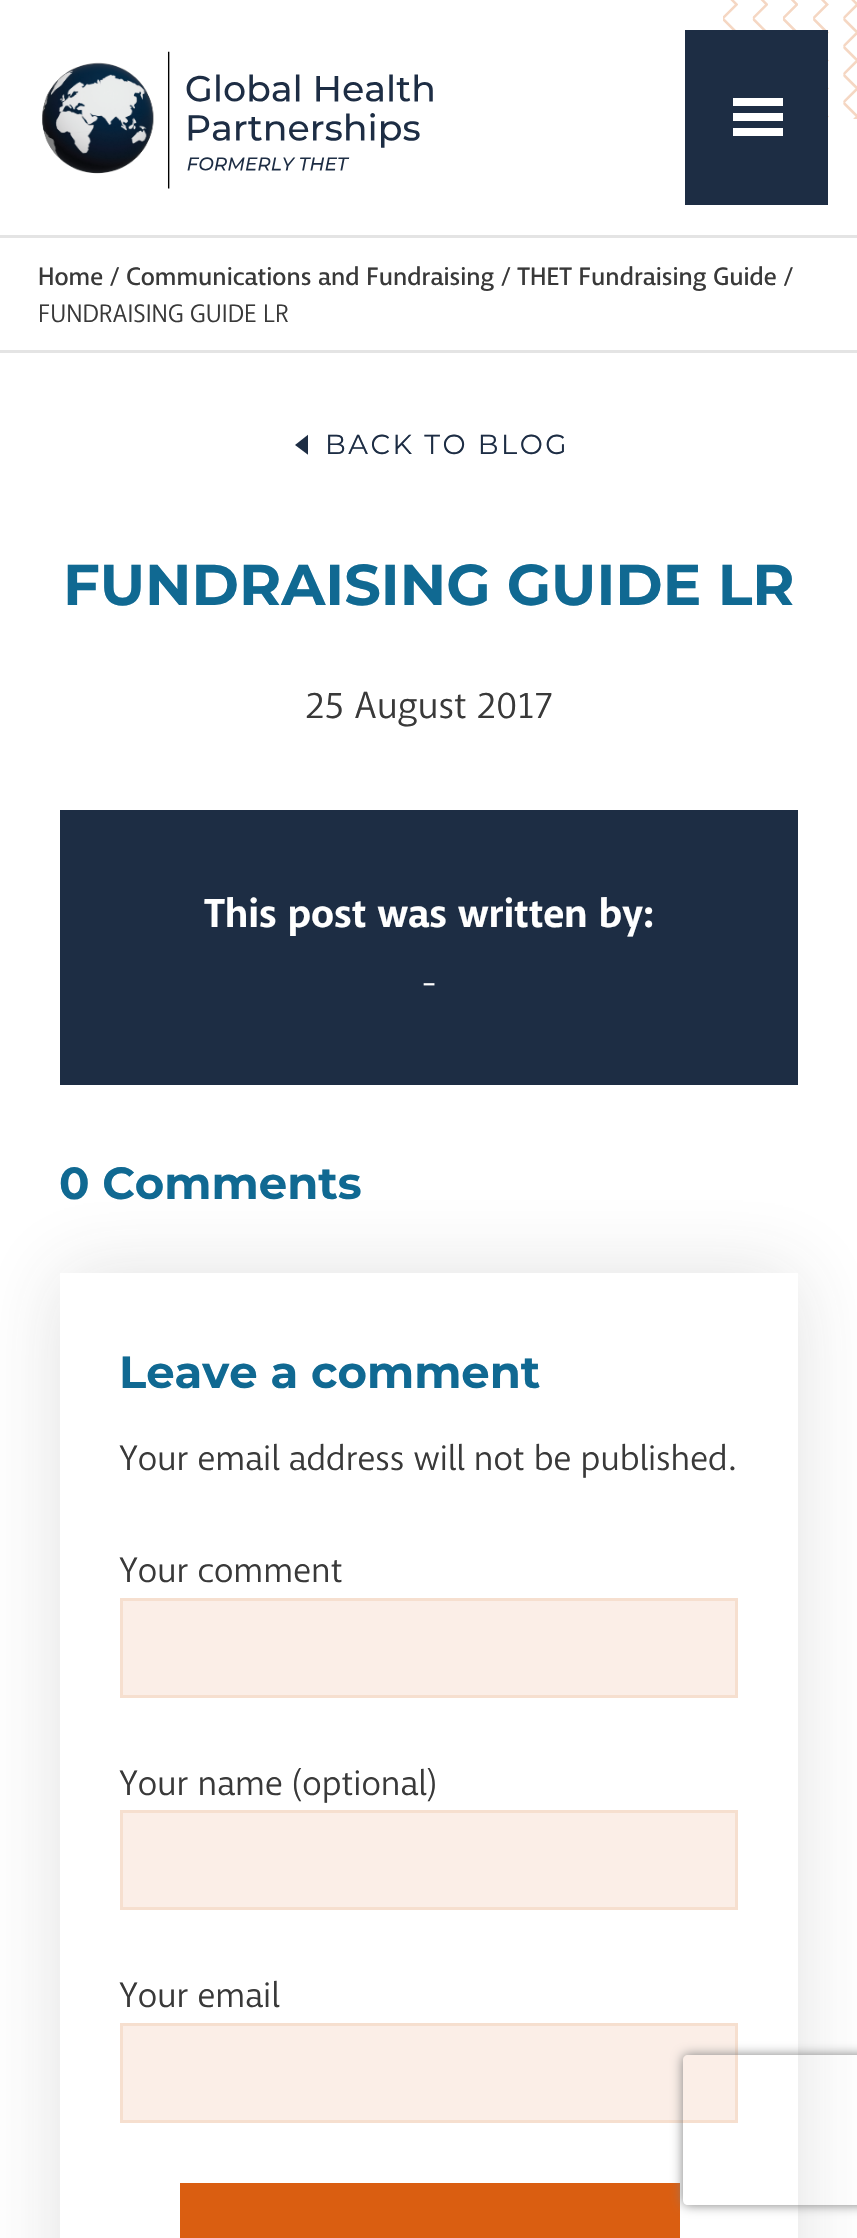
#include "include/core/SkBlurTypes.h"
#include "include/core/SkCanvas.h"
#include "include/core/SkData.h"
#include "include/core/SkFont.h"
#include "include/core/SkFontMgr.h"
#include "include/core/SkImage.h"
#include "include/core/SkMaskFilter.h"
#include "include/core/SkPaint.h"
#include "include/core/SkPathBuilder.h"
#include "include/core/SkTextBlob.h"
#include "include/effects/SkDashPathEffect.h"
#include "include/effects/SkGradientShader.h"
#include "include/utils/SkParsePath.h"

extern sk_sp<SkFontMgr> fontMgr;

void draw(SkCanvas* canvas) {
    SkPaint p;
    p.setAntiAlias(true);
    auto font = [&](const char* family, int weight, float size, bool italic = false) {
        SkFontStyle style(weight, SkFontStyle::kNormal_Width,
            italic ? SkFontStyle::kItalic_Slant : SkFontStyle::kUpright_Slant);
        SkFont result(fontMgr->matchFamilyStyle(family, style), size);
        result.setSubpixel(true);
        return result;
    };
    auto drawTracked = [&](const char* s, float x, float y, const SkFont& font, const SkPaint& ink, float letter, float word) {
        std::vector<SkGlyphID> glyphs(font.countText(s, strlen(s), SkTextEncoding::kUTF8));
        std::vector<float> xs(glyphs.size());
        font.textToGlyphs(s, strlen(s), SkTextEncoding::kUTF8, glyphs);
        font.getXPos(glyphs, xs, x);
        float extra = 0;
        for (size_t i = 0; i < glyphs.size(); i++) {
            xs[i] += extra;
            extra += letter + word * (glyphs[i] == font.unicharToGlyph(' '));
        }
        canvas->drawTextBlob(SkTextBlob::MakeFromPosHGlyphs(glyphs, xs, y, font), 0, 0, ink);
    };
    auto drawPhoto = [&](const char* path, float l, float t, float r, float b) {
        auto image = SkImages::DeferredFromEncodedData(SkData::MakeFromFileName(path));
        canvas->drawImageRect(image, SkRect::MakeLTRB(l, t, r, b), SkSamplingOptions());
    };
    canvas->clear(0xFFFFFFFF);
    drawPhoto("media/1.png", 723, 0, 857, 119);
    drawPhoto("media/2.png", 42, 51, 433, 189);
    {
        const struct { float l, t, r, b; SkColor color; } items[] = {
            {685, 30, 828, 205, 0xFF1D2D44},
            {733, 113, 783, 121, 0xFFFFFFFF},
            {733, 98, 783, 106, 0xFFFFFFFF},
            {733, 128, 783, 136, 0xFFFFFFFF},
            {0, 235, 857, 238, 0xFFE4E4E4},
            {0, 350, 857, 353, 0xFFE4E4E4},
        };
        for (auto [l, t, r, b, color] : items) {
            p.setColor(color);
            canvas->drawRect(SkRect::MakeLTRB(l, t, r, b), p);
        }
    }
    auto font1 = font("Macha", 500, 25);
    p.setColor(0xFF393939);
    canvas->drawString("Home / Communications and Fundraising / THET Fundraising Guide /", 38, 285, font1, p);
    auto font2 = font("Macha", 400, 25);
    canvas->drawString("FUNDRAISING GUIDE LR", 38, 322, font2, p);
    canvas->save();
    canvas->clipRect(SkRect::MakeLTRB(295, 430, 308, 458));
    p.setColor(0xFF1D2D44);
    canvas->drawPath(SkPathBuilder(SkPathFillType::kEvenOdd).moveTo(311.5f, 432).lineTo(295, 445).lineTo(311.5f, 457.5f).detach(), p);
    canvas->restore();
    auto font3 = font("Montserrat", 400, 27.5f);
    drawTracked("BACK TO BLOG", 325, 454, font3, p, 2.5f, 0);
    auto font4 = font("Montserrat", 700, 57.5f);
    p.setColor(0xFF106992);
    canvas->drawString("FUNDRAISING GUIDE LR", 63, 605, font4, p);
    auto font5 = font("Macha", 400, 37.5f);
    p.setColor(0xFF393939);
    canvas->drawString("25 August 2017", 305, 718, font5, p);
    p.setColor(0xFF1D2D44);
    canvas->drawRect(SkRect::MakeLTRB(60, 810, 798, 1085), p);
    auto font6 = font("Macha", 700, 40);
    p.setColor(0xFFFFFFFF);
    canvas->drawString("This post was written by:", 204, 927, font6, p);
    auto font7 = font("Macha", 400, 35);
    canvas->drawString("-", 422, 994, font7, p);
    canvas->save();
    canvas->clipPath(SkPathBuilder(SkPathFillType::kEvenOdd).moveTo(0, 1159).lineTo(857, 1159).lineTo(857, 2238).lineTo(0, 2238).close().moveTo(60, 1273).lineTo(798, 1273).lineTo(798, 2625).lineTo(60, 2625).close().detach(), true);
    p.setColor(0x26393939);
    p.setMaskFilter(SkMaskFilter::MakeBlur(kNormal_SkBlurStyle, 37.5f));
    canvas->drawRect(SkRect::MakeLTRB(60, 1273, 798, 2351), p);
    p.setMaskFilter(nullptr);
    canvas->restore();
    auto font8 = font("Montserrat", 700, 45);
    p.setColor(0xFF106992);
    canvas->drawString("0 Comments", 59, 1199, font8, p);
    canvas->drawString("Leave a comment", 119, 1388, font8, p);
    p.setColor(0xFF393939);
    canvas->drawString("Your email address will not be published.", 119, 1470, font7, p);
    canvas->drawString("Your comment", 119, 1582, font7, p);
    p.setColor(0xFFFBEEE7);
    canvas->drawRect(SkRect::MakeLTRB(121.5f, 1599.5f, 736.5f, 1696.5f), p);
    p.setStyle(SkPaint::kStroke_Style);
    p.setStrokeWidth(3);
    p.setColor(0xFFF6DFCF);
    canvas->drawRect(SkRect::MakeLTRB(121.5f, 1599.5f, 736.5f, 1696.5f), p);
    p.setStyle(SkPaint::kFill_Style);
    p.setColor(0xFF393939);
    canvas->drawString("Your name (optional)", 119, 1795, font7, p);
    p.setColor(0xFFFBEEE7);
    canvas->drawRect(SkRect::MakeLTRB(121.5f, 1811.5f, 736.5f, 1908.5f), p);
    p.setStyle(SkPaint::kStroke_Style);
    p.setColor(0xFFF6DFCF);
    canvas->drawRect(SkRect::MakeLTRB(121.5f, 1811.5f, 736.5f, 1908.5f), p);
    p.setStyle(SkPaint::kFill_Style);
    p.setColor(0xFF393939);
    canvas->drawString("Your email", 119, 2007, font7, p);
    p.setColor(0xFFFBEEE7);
    canvas->drawRect(SkRect::MakeLTRB(121.5f, 2024.5f, 736.5f, 2121.5f), p);
    p.setStyle(SkPaint::kStroke_Style);
    p.setColor(0xFFF6DFCF);
    canvas->drawRect(SkRect::MakeLTRB(121.5f, 2024.5f, 736.5f, 2121.5f), p);
    p.setStyle(SkPaint::kFill_Style);
    p.setColor(0xFFDA5E11);
    canvas->drawRect(SkRect::MakeLTRB(180, 2183, 680, 2238), p);
    canvas->save();
    canvas->clipPath(SkPathBuilder(SkPathFillType::kEvenOdd).moveTo(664, 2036).lineTo(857, 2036).lineTo(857, 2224).lineTo(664, 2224).close().moveTo(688, 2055).lineTo(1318, 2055).cubicTo(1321, 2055, 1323, 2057, 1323, 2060).lineTo(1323, 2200).cubicTo(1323, 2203, 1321, 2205, 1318, 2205).lineTo(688, 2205).cubicTo(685, 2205, 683, 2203, 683, 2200).lineTo(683, 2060).cubicTo(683, 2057, 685, 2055, 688, 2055).close().detach(), true);
    p.setColor(0xFF808080);
    p.setMaskFilter(SkMaskFilter::MakeBlur(kNormal_SkBlurStyle, 6));
    canvas->drawRoundRect(SkRect::MakeLTRB(683, 2055, 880, 2205), 5, 5, p);
    p.setMaskFilter(nullptr);
    canvas->restore();
}
